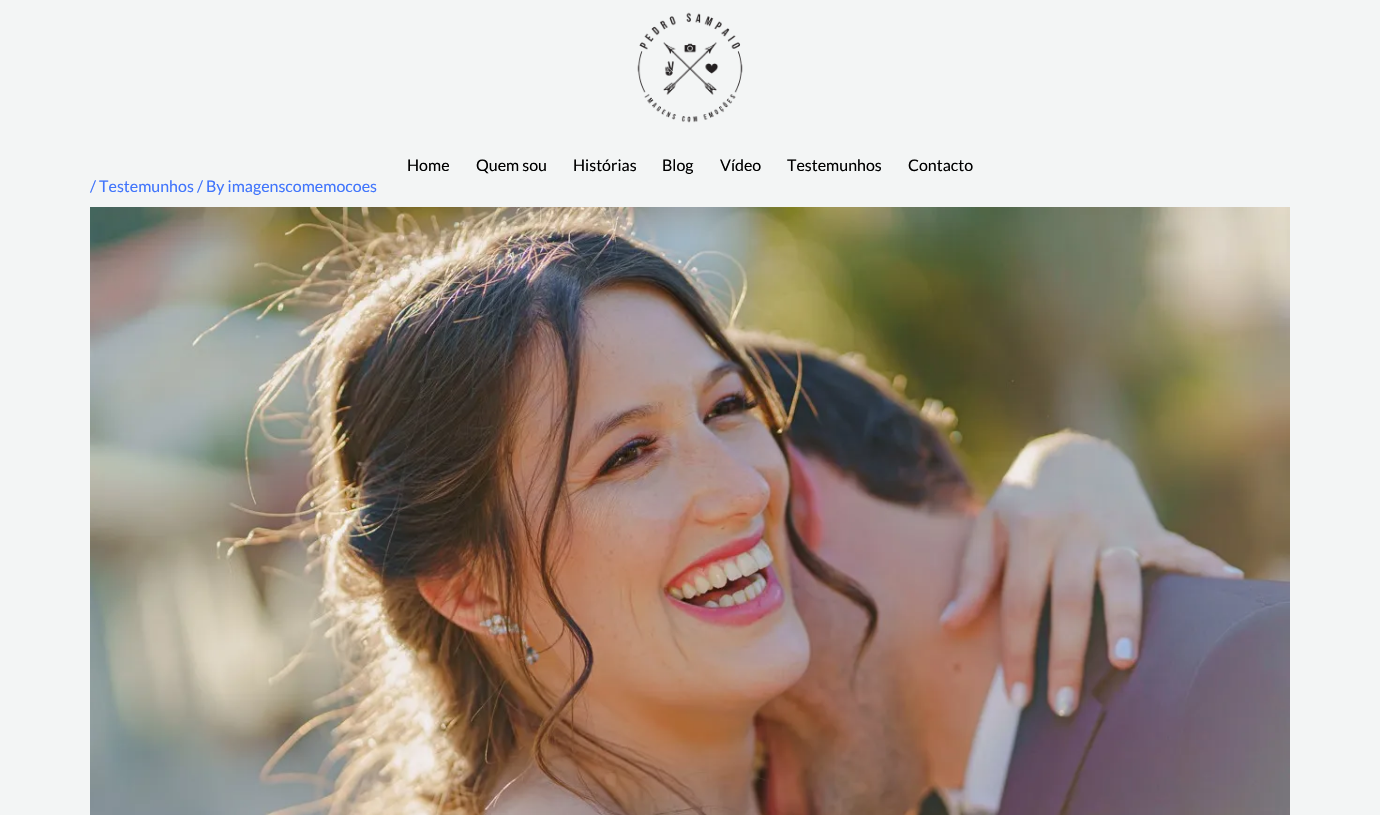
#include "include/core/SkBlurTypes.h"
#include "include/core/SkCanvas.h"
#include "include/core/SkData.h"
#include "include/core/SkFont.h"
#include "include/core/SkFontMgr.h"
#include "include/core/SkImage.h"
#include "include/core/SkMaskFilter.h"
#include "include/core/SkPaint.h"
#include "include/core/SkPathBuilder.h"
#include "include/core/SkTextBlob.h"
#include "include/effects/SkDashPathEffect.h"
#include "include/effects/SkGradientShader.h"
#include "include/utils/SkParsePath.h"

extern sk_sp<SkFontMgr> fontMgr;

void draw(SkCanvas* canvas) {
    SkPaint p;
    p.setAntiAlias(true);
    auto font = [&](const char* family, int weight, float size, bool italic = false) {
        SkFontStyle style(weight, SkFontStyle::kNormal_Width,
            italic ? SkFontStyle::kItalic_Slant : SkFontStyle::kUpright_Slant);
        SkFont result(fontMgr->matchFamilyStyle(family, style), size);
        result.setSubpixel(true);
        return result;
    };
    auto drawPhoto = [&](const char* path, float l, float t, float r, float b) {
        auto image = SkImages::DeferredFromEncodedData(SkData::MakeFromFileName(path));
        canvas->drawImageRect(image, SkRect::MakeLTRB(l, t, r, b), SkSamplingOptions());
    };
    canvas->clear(0xFFF3F5F5);
    drawPhoto("media/1.png", 637, 12, 743, 123);
    auto font1 = font("Lato", 400, 16);
    p.setColor(0xFF000000);
    {
        const struct { const char* s; float x, y; } items[] = {
            {"Home", 407, 171},
            {"Quem sou", 476, 171},
            {"Histórias", 573, 171},
            {"Blog", 662, 171},
            {"Vídeo", 720, 171},
            {"Testemunhos", 787, 171},
            {"Contacto", 908, 171},
        };
        for (auto [s, x, y] : items) {
            canvas->drawString(s, x, y, font1, p);
        }
    }
    p.setColor(0xFF4175FC);
    canvas->drawString("/ Testemunhos / By imagenscomemocoes", 90, 192, font1, p);
    drawPhoto("media/2.png", 90, 207, 1290, 815);
}
